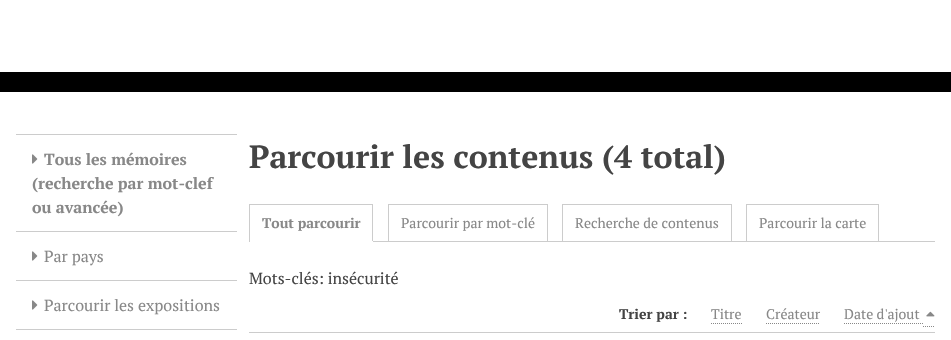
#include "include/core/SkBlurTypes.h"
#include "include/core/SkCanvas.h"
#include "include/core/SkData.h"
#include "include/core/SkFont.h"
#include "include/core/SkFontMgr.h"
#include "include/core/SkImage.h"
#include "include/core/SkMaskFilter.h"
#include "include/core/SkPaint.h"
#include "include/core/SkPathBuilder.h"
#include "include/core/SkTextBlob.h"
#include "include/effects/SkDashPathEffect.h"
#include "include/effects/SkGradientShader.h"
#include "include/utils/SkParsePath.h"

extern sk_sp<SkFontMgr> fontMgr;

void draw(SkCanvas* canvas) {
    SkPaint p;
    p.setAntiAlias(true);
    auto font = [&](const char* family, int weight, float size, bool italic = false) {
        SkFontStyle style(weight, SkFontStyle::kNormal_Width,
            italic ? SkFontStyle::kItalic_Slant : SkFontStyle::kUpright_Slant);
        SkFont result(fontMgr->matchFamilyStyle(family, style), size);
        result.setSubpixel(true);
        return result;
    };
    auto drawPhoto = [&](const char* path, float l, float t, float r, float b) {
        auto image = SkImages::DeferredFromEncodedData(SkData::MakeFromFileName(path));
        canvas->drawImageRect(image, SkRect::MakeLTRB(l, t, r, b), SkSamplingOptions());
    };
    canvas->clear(0xFFFFFFFF);
    {
        const struct { float l, t, r, b; SkColor color; } items[] = {
            {0, 72, 951, 92, 0xFF000000},
            {16, 134, 237, 135, 0xFFCCCCCC},
            {16, 231, 237, 232, 0xFFCCCCCC},
        };
        for (auto [l, t, r, b, color] : items) {
            p.setColor(color);
            canvas->drawRect(SkRect::MakeLTRB(l, t, r, b), p);
        }
    }
    drawPhoto("media/1.png", 32, 154, 38, 164);
    auto font1 = font("PT Serif", 700, 16);
    p.setColor(0xFF888888);
    {
        const struct { const char* s; float x, y; } items[] = {
            {"Tous les mémoires", 44, 165},
            {"(recherche par mot-clef", 32, 189},
            {"ou avancée)", 32, 213},
        };
        for (auto [s, x, y] : items) {
            canvas->drawString(s, x, y, font1, p);
        }
    }
    p.setColor(0xFFCCCCCC);
    canvas->drawRect(SkRect::MakeLTRB(16, 280, 237, 281), p);
    drawPhoto("media/1.png", 32, 251, 38, 261);
    auto font2 = font("PT Serif", 400, 16);
    p.setColor(0xFF888888);
    canvas->drawString("Par pays", 44, 262, font2, p);
    p.setColor(0xFFCCCCCC);
    canvas->drawRect(SkRect::MakeLTRB(16, 329, 237, 330), p);
    drawPhoto("media/1.png", 32, 300, 38, 310);
    p.setColor(0xFF888888);
    canvas->drawString("Parcourir les expositions", 44, 311, font2, p);
    auto font3 = font("PT Serif", 700, 32);
    p.setColor(0xFF444444);
    canvas->drawString("Parcourir les contenus (4 total)", 249, 168, font3, p);
    {
        const struct { float l, t, r, b; SkColor color; } items[] = {
            {373, 241, 935, 242, 0xFFCCCCCC},
            {249, 204, 373, 205, 0xFFCCCCCC},
            {372, 204, 373, 242, 0xFFCCCCCC},
            {372, 241, 373, 242, 0xFFFFFFFF},
            {249, 204, 250, 242, 0xFFCCCCCC},
        };
        for (auto [l, t, r, b, color] : items) {
            p.setColor(color);
            canvas->drawRect(SkRect::MakeLTRB(l, t, r, b), p);
        }
    }
    auto font4 = font("PT Serif", 700, 14);
    p.setColor(0xFF888888);
    canvas->drawString("Tout parcourir", 262, 228, font4, p);
    p.setStyle(SkPaint::kStroke_Style);
    p.setStrokeWidth(1);
    p.setColor(0xFFCCCCCC);
    canvas->drawRect(SkRect::MakeLTRB(388.5f, 204.5f, 547.5f, 241.5f), p);
    auto font5 = font("PT Serif", 400, 14);
    p.setStyle(SkPaint::kFill_Style);
    p.setColor(0xFF888888);
    canvas->drawString("Parcourir par mot-clé", 401, 228, font5, p);
    p.setStyle(SkPaint::kStroke_Style);
    p.setColor(0xFFCCCCCC);
    canvas->drawRect(SkRect::MakeLTRB(562.5f, 204.5f, 731.5f, 241.5f), p);
    p.setStyle(SkPaint::kFill_Style);
    p.setColor(0xFF888888);
    canvas->drawString("Recherche de contenus", 575, 228, font5, p);
    {
        const struct { float l, t, r, b; SkColor color; } items[] = {
            {746, 204, 879, 205, 0xFFCCCCCC},
            {878, 204, 879, 241, 0xFFCCCCCC},
            {746, 204, 747, 241, 0xFFCCCCCC},
        };
        for (auto [l, t, r, b, color] : items) {
            p.setColor(color);
            canvas->drawRect(SkRect::MakeLTRB(l, t, r, b), p);
        }
    }
    p.setColor(0xFF888888);
    canvas->drawString("Parcourir la carte", 759, 228, font5, p);
    p.setColor(0xFF444444);
    canvas->drawString("Mots-clés: insécurité", 249, 284, font2, p);
    canvas->drawString("Trier par :", 619, 319, font4, p);
    p.setColor(0xFF888888);
    canvas->drawString("Titre", 711, 319, font5, p);
    p.setStyle(SkPaint::kStroke_Style);
    p.setPathEffect(SkDashPathEffect::Make({{1, 1}}, 0));
    canvas->drawPath(SkPathBuilder().moveTo(711, 323.5f).lineTo(742, 323.5f).detach(), p);
    p.setPathEffect(nullptr);
    p.setStyle(SkPaint::kFill_Style);
    canvas->drawString("Créateur", 766, 319, font5, p);
    p.setStyle(SkPaint::kStroke_Style);
    p.setPathEffect(SkDashPathEffect::Make({{1, 1}}, 0));
    canvas->drawPath(SkPathBuilder().moveTo(766, 323.5f).lineTo(820, 323.5f).detach(), p);
    p.setPathEffect(nullptr);
    p.setPathEffect(SkDashPathEffect::Make({{1, 1}}, 0));
    canvas->drawPath(SkPathBuilder().moveTo(844, 323.5f).lineTo(923, 323.5f).detach(), p);
    p.setPathEffect(nullptr);
    p.setPathEffect(SkDashPathEffect::Make({{1, 1}}, 0));
    canvas->drawPath(SkPathBuilder().moveTo(923, 326.5f).lineTo(935, 326.5f).detach(), p);
    p.setPathEffect(nullptr);
    p.setStyle(SkPaint::kFill_Style);
    canvas->drawString("Date d'ajout", 844, 319, font5, p);
    drawPhoto("media/2.png", 926, 311, 935, 317);
    p.setColor(0xFFCCCCCC);
    canvas->drawRect(SkRect::MakeLTRB(249, 332, 935, 333), p);
}
